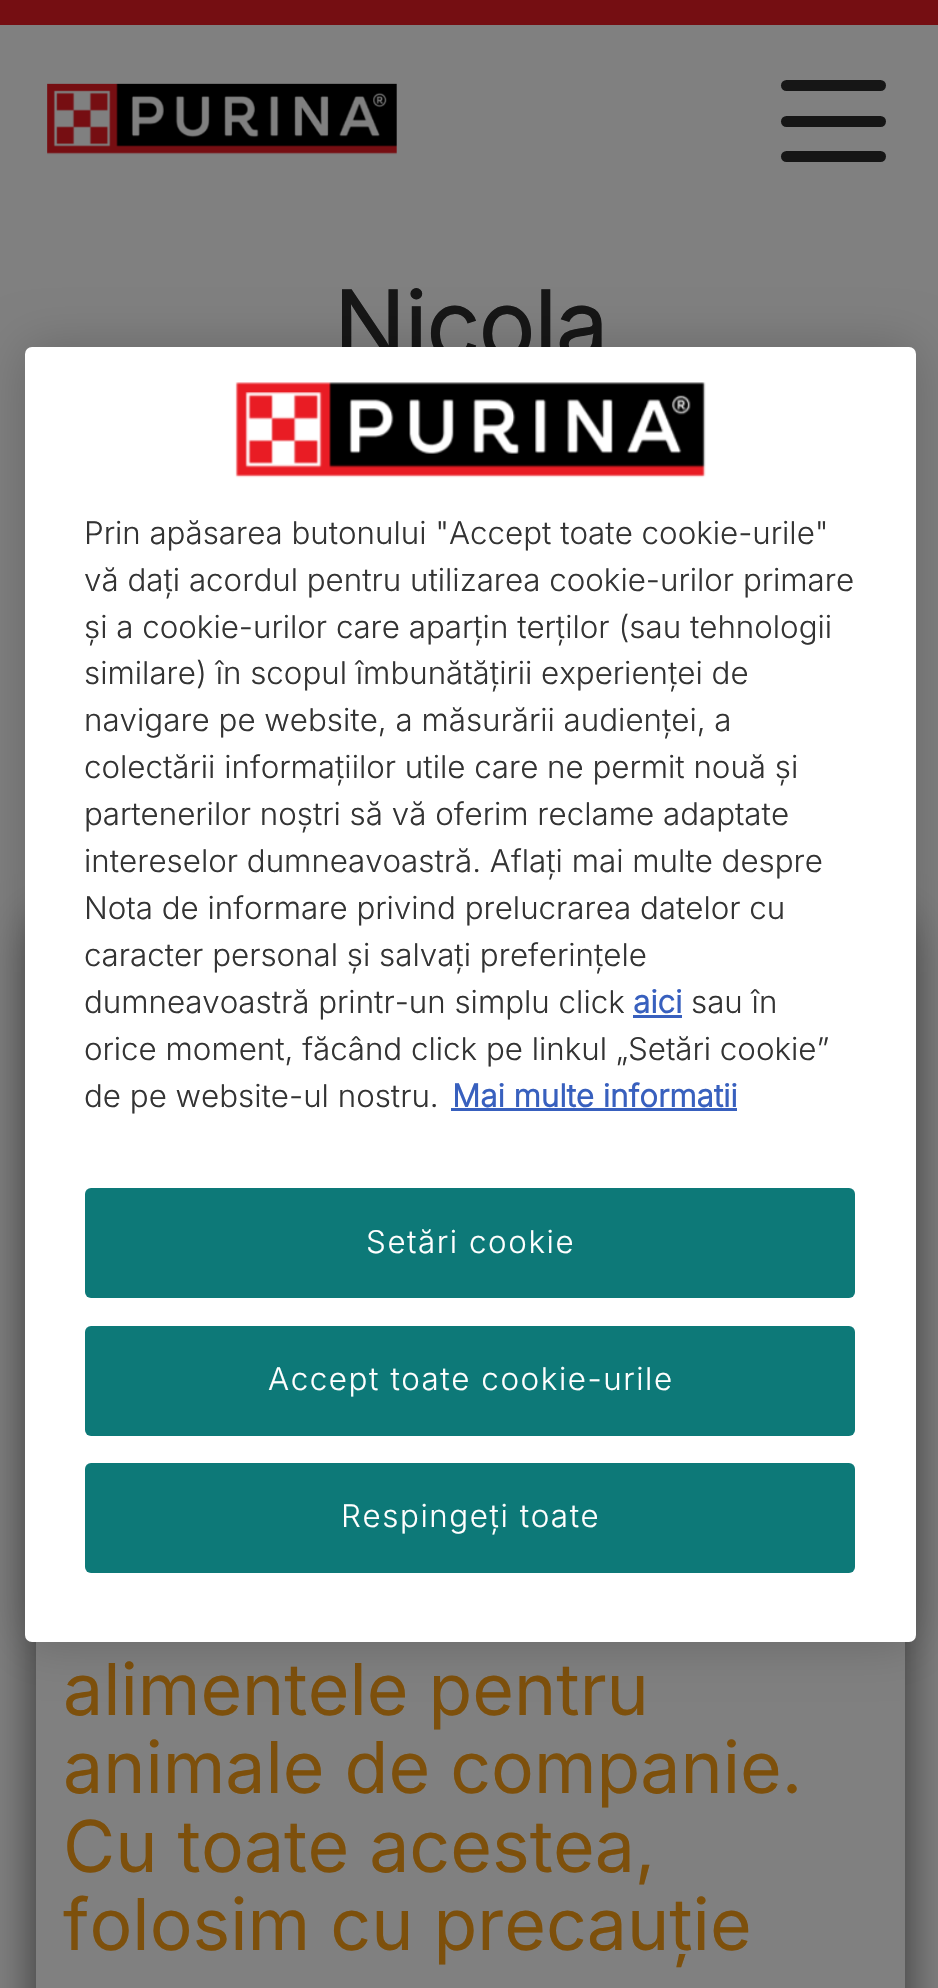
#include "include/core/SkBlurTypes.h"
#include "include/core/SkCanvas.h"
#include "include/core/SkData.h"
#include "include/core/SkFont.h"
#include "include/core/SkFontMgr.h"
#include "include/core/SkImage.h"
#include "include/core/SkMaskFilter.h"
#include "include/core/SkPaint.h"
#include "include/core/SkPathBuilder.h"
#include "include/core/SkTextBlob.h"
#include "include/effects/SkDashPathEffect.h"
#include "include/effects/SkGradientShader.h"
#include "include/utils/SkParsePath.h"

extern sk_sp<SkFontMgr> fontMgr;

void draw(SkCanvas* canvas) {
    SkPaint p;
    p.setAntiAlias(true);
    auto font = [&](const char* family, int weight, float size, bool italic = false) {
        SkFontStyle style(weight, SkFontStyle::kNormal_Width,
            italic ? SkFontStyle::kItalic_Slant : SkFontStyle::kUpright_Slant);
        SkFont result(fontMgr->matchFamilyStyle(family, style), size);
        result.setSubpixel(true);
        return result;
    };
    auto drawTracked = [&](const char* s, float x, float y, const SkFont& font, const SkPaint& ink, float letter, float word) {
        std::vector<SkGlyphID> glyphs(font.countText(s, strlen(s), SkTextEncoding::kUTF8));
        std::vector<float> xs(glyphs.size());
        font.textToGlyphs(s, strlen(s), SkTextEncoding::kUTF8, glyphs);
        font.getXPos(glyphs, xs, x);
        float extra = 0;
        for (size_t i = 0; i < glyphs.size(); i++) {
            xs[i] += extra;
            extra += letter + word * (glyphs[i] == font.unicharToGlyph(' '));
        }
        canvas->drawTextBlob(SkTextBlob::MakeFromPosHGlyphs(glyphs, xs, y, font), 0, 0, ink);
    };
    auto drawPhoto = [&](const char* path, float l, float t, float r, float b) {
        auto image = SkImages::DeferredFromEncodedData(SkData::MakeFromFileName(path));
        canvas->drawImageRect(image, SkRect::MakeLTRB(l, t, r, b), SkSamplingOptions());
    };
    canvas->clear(0xFF808080);
    p.setColor(0xFF750E12);
    canvas->drawRect(SkRect::MakeLTRB(0, 0, 938, 25), p);
    drawPhoto("media/1.png", 47, 83, 397, 155);
    p.setColor(0xFF161616);
    canvas->drawRoundRect(SkRect::MakeLTRB(781, 80, 886, 91), 5.5f, 5.5f, p);
    canvas->drawRoundRect(SkRect::MakeLTRB(781, 116, 886, 127), 5.5f, 5.5f, p);
    canvas->drawRoundRect(SkRect::MakeLTRB(781, 151, 886, 162), 5.5f, 5.5f, p);
    auto font1 = font("Inter", 700, 93.5f);
    canvas->drawString("Nicola", 333, 360, font1, p);
    p.setColor(0x99000000);
    p.setMaskFilter(SkMaskFilter::MakeBlur(kNormal_SkBlurStyle, 22));
    canvas->drawRect(SkRect::MakeLTRB(36, 924, 905, 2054), p);
    p.setMaskFilter(nullptr);
    p.setColor(0xFF808080);
    canvas->drawRect(SkRect::MakeLTRB(36, 1642, 905, 1988), p);
    auto font2 = font("Inter", 400, 71.5f);
    p.setColor(0xFF7D500C);
    {
        const struct { const char* s; float x, y; } items[] = {
            {"alimentele pentru", 63, 1715},
            {"animale de companie.", 63, 1793},
            {"Cu toate acestea,", 63, 1872},
            {"folosim cu precauție", 63, 1950},
        };
        for (auto [s, x, y] : items) {
            canvas->drawString(s, x, y, font2, p);
        }
    }
    p.setColor(0x33000000);
    p.setMaskFilter(SkMaskFilter::MakeBlur(kNormal_SkBlurStyle, 25));
    canvas->drawRoundRect(SkRect::MakeLTRB(25, 347, 916, 1642), 7, 7, p);
    p.setMaskFilter(nullptr);
    p.setColor(0xFFFFFFFF);
    canvas->drawRoundRect(SkRect::MakeLTRB(25, 347, 916, 1642), 7, 7, p);
    drawPhoto("media/2.png", 235, 382, 706, 478);
    auto font3 = font("Inter", 300, 31.3f);
    p.setColor(0xFF333333);
    {
        const struct { const char* s; float x, y; } items[] = {
            {"Prin apăsarea butonului \"Accept toate cookie-urile\"", 84, 544},
            {"vă dați acordul pentru utilizarea cookie-urilor primare", 84, 591},
            {"și a cookie-urilor care aparțin terților (sau tehnologii", 84, 638},
            {"similare) în scopul îmbunătățirii experienței de", 84, 684},
            {"navigare pe website, a măsurării audienței, a", 84, 731},
            {"colectării informațiilor utile care ne permit nouă și", 84, 778},
            {"partenerilor noștri să vă oferim reclame adaptate", 84, 825},
            {"intereselor dumneavoastră. Aflați mai multe despre", 84, 872},
            {"Nota de informare privind prelucrarea datelor cu", 84, 919},
            {"caracter personal și salvați preferințele", 84, 966},
            {"dumneavoastră printr-un simplu click", 84, 1013},
        };
        for (auto [s, x, y] : items) {
            canvas->drawString(s, x, y, font3, p);
        }
    }
    auto font4 = font("Inter", 700, 31.3f);
    p.setColor(0xFF3860BE);
    canvas->drawString("aici", 633, 1013, font4, p);
    canvas->drawRect(SkRect::MakeLTRB(633, 1015, 682, 1018), p);
    p.setColor(0xFF333333);
    {
        const struct { const char* s; float x, y; } items[] = {
            {"sau în", 691, 1013},
            {"orice moment, făcând click pe linkul „Setări cookie”", 84, 1060},
            {"de pe website-ul nostru.", 84, 1107},
        };
        for (auto [s, x, y] : items) {
            canvas->drawString(s, x, y, font3, p);
        }
    }
    p.setColor(0xFF3860BE);
    canvas->drawString("Mai multe informatii", 452, 1107, font4, p);
    canvas->drawRect(SkRect::MakeLTRB(451, 1108, 737, 1111), p);
    p.setColor(0xFF0D7978);
    canvas->drawRoundRect(SkRect::MakeLTRB(85, 1188, 855, 1298), 6, 6, p);
    p.setColor(0xFFFFFFFF);
    drawTracked("Setări cookie", 366, 1253, font3, p, 1.6f, 0);
    p.setColor(0xFF0D7978);
    canvas->drawRoundRect(SkRect::MakeLTRB(85, 1326, 855, 1436), 6, 6, p);
    p.setColor(0xFFFFFFFF);
    drawTracked("Accept toate cookie-urile", 268, 1390, font3, p, 1.6f, 0);
    p.setColor(0xFF0D7978);
    canvas->drawRoundRect(SkRect::MakeLTRB(85, 1463, 855, 1573), 6, 6, p);
    p.setColor(0xFFFFFFFF);
    drawTracked("Respingeți toate", 341, 1527, font3, p, 1.6f, 0);
}
